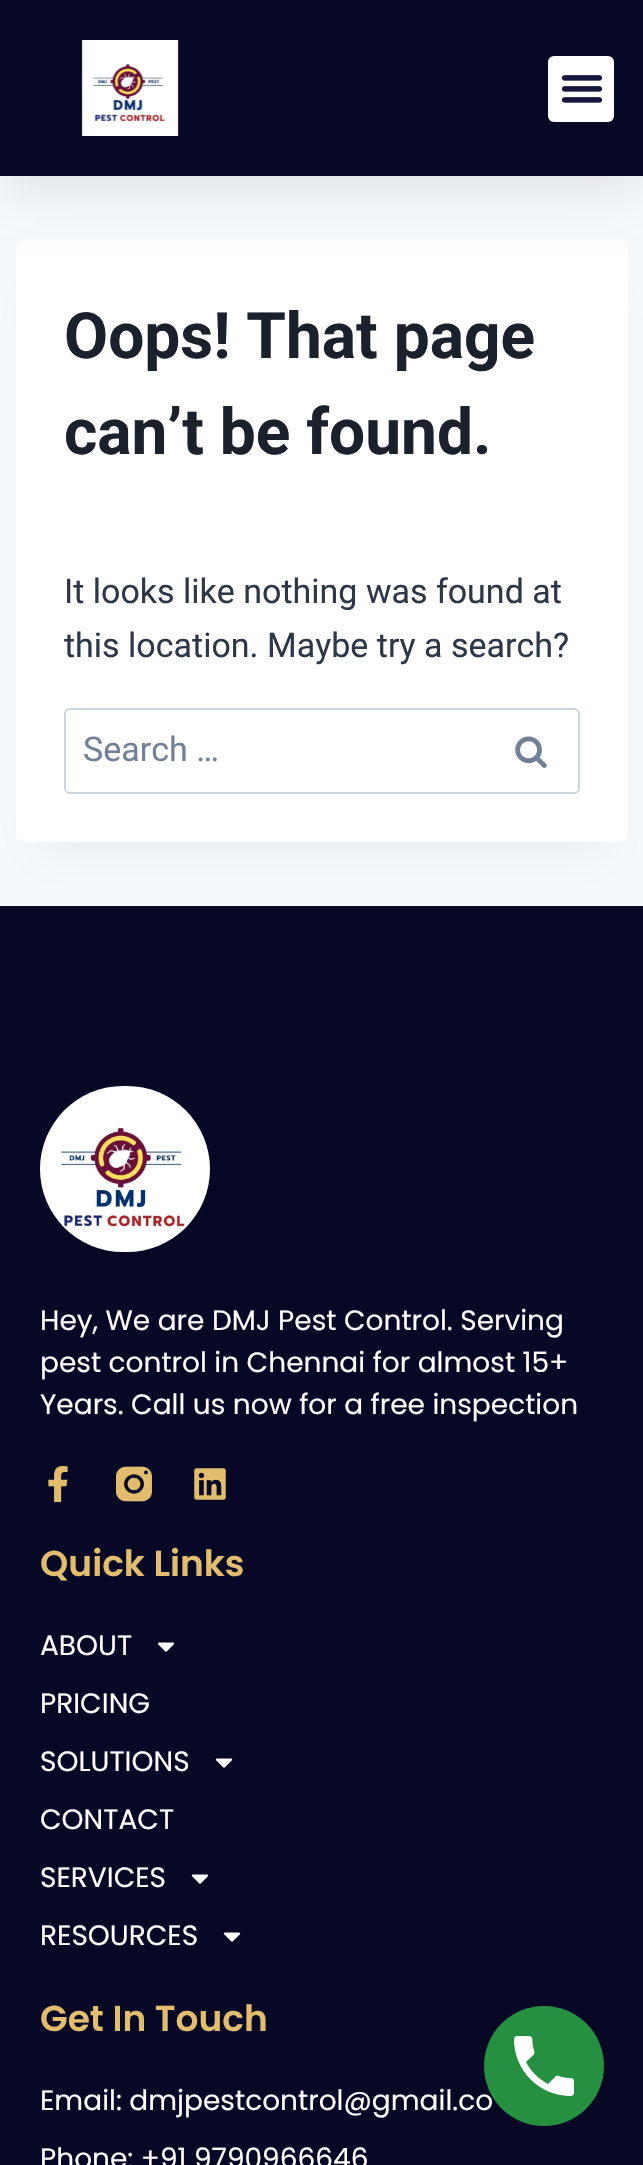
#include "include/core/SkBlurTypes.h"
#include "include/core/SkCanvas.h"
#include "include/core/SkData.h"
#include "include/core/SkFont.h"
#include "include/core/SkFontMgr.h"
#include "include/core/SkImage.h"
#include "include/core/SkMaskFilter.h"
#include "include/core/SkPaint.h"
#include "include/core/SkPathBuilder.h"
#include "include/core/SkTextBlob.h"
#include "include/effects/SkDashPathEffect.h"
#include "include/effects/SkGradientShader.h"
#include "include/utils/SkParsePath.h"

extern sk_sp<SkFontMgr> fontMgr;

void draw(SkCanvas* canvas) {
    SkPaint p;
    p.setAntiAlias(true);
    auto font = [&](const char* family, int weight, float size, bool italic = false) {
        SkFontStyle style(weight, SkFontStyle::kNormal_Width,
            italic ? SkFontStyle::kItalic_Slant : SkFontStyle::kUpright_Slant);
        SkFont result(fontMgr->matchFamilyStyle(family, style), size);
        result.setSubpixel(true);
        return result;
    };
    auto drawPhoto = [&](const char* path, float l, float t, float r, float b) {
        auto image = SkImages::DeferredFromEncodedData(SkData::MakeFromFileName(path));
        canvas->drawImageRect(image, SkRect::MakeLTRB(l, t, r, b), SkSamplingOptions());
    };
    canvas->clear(0xFFF7FAFC);
    p.setColor(0x0D000000);
    p.setMaskFilter(SkMaskFilter::MakeBlur(kNormal_SkBlurStyle, 25));
    canvas->drawRect(SkRect::MakeLTRB(36, 290, 608, 852), p);
    p.setMaskFilter(nullptr);
    p.setColor(0xFFFFFFFF);
    canvas->drawRoundRect(SkRect::MakeLTRB(16, 240, 628, 842), 8, 8, p);
    p.setColor(0x1A000000);
    p.setMaskFilter(SkMaskFilter::MakeBlur(kNormal_SkBlurStyle, 30));
    canvas->drawRect(SkRect::MakeLTRB(0, 10, 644, 186), p);
    p.setMaskFilter(nullptr);
    p.setColor(0xFF070726);
    canvas->drawRect(SkRect::MakeLTRB(0, 0, 643, 176), p);
    drawPhoto("media/1.png", 81, 40, 179, 136);
    p.setColor(0xFFFFFFFF);
    canvas->drawRoundRect(SkRect::MakeLTRB(548, 56, 614, 122), 6, 6, p);
    drawPhoto("media/2.png", 561, 75, 603, 103);
    auto font1 = font("Roboto", 700, 64);
    p.setColor(0xFF1A202C);
    canvas->drawString("Oops! That page", 64, 358, font1, p);
    canvas->drawString("can’t be found.", 64, 454, font1, p);
    auto font2 = font("Roboto", 400, 34);
    p.setColor(0xFF2D3748);
    canvas->drawString("It looks like nothing was found at", 64, 603, font2, p);
    canvas->drawString("this location. Maybe try a search?", 64, 657, font2, p);
    p.setStyle(SkPaint::kStroke_Style);
    p.setStrokeWidth(2);
    p.setColor(0xFFCBD5E0);
    canvas->drawRoundRect(SkRect::MakeLTRB(65, 709, 579, 793), 5, 5, p);
    p.setStyle(SkPaint::kFill_Style);
    p.setColor(0xFF718096);
    canvas->drawString("Search …", 83, 761, font2, p);
    drawPhoto("media/3.png", 515, 736, 547, 768);
    p.setColor(0xFF070726);
    canvas->drawRect(SkRect::MakeLTRB(0, 906, 643, 2165), p);
    drawPhoto("media/4.png", 40, 1086, 210, 1252);
    auto font3 = font("Poppins", 400, 28);
    p.setColor(0xFFFFFFFF);
    {
        const struct { const char* s; float x, y; } items[] = {
            {"Hey, We are DMJ Pest Control. Serving", 40, 1330},
            {"pest control in Chennai for almost 15+", 40, 1372},
            {"Years. Call us now for a free inspection", 40, 1414},
        };
        for (auto [s, x, y] : items) {
            canvas->drawString(s, x, y, font3, p);
        }
    }
    drawPhoto("media/5.png", 48, 1466, 68, 1502);
    drawPhoto("media/6.png", 116, 1466, 152, 1502);
    drawPhoto("media/7.png", 194, 1468, 226, 1500);
    auto font4 = font("Poppins", 600, 36);
    p.setColor(0xFFE2BD6D);
    canvas->drawString("Quick Links", 40, 1576, font4, p);
    p.setColor(0xFFFFFFFF);
    canvas->drawString("ABOUT", 40, 1655, font3, p);
    drawPhoto("media/8.png", 157, 1642, 175, 1652);
    canvas->drawString("PRICING", 40, 1713, font3, p);
    canvas->drawString("SOLUTIONS", 40, 1771, font3, p);
    drawPhoto("media/8.png", 215, 1758, 233, 1768);
    canvas->drawString("CONTACT", 40, 1829, font3, p);
    canvas->drawString("SERVICES", 40, 1887, font3, p);
    drawPhoto("media/8.png", 191, 1874, 209, 1884);
    canvas->drawString("RESOURCES", 40, 1945, font3, p);
    drawPhoto("media/8.png", 223, 1932, 241, 1942);
    p.setColor(0xFFE2BD6D);
    canvas->drawString("Get In Touch", 40, 2031, font4, p);
    p.setColor(0xFFFFFFFF);
    canvas->drawString("Email: dmjpestcontrol@gmail.co", 40, 2110, font3, p);
    canvas->drawString("Phone: +91 9790966646", 40, 2168, font3, p);
    p.setColor(0xFF269041);
    canvas->drawCircle(544, 2066, 60, p);
    drawPhoto("media/9.png", 514, 2036, 574, 2096);
}
